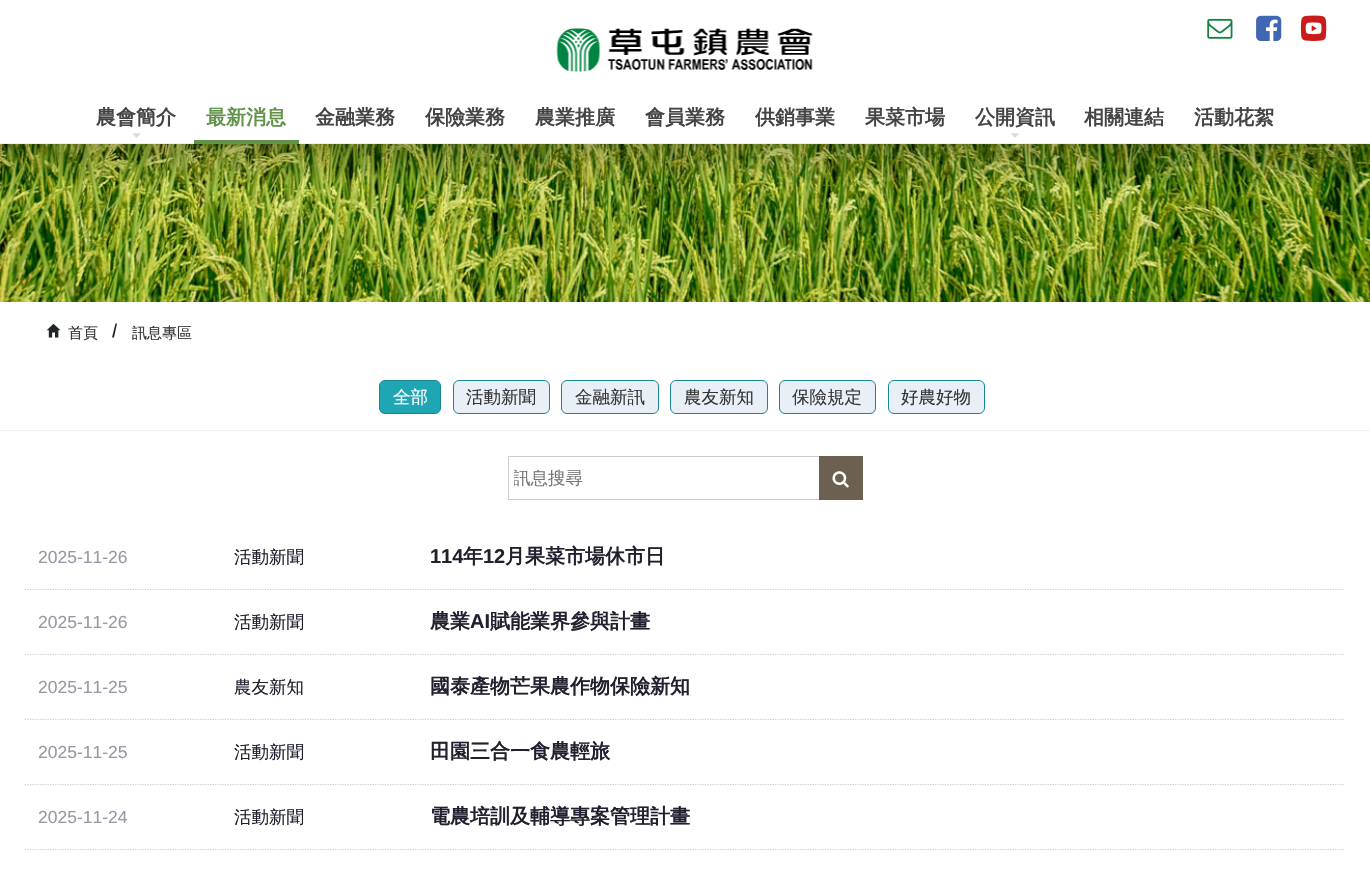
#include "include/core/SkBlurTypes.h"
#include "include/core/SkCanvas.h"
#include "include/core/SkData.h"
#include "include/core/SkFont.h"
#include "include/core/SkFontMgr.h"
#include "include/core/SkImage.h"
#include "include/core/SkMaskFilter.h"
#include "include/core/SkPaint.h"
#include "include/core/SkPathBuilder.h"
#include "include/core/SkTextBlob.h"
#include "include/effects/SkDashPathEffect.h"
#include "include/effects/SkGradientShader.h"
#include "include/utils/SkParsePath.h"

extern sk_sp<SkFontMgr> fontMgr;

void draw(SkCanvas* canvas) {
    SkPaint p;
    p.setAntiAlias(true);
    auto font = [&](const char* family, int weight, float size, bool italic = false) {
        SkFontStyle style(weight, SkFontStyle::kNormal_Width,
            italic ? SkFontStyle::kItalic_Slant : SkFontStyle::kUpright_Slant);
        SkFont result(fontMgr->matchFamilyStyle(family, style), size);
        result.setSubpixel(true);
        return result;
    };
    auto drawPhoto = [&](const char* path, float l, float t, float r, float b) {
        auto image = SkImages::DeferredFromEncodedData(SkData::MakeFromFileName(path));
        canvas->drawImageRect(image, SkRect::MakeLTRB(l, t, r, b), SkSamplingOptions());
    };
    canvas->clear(0xFFFFFFFF);
    p.setColor(0xFFF2F2F2);
    canvas->drawRect(SkRect::MakeLTRB(0, 143, 1370, 144), p);
    drawPhoto("media/1.png", 556, 28, 813, 72);
    drawPhoto("media/2.png", 1207, 18, 1233, 39);
    drawPhoto("media/3.png", 1256, 15, 1282, 41);
    drawPhoto("media/4.png", 1300, 15, 1327, 41);
    auto font1 = font("WenQuanYi Zen Hei", 700, 20);
    p.setColor(0xFF444444);
    canvas->drawString("農會簡介", 96, 124, font1, p);
    drawPhoto("media/5.png", 132, 133, 141, 138);
    p.setColor(0xFF62934A);
    canvas->drawString("最新消息", 206, 124, font1, p);
    canvas->drawRect(SkRect::MakeLTRB(194, 140, 299, 144), p);
    p.setColor(0xFF444444);
    {
        const struct { const char* s; float x, y; } items[] = {
            {"金融業務", 315, 124},
            {"保險業務", 425, 124},
            {"農業推廣", 535, 124},
            {"會員業務", 645, 124},
            {"供銷事業", 755, 124},
            {"果菜市場", 865, 124},
            {"公開資訊", 975, 124},
        };
        for (auto [s, x, y] : items) {
            canvas->drawString(s, x, y, font1, p);
        }
    }
    drawPhoto("media/6.png", 1011, 133, 1019, 138);
    canvas->drawString("相關連結", 1084, 124, font1, p);
    canvas->drawString("活動花絮", 1194, 124, font1, p);
    drawPhoto("media/7.png", 0, 144, 1370, 302);
    drawPhoto("media/8.png", 46, 323, 61, 338);
    auto font2 = font("WenQuanYi Zen Hei", 500, 15);
    p.setColor(0xFF333333);
    canvas->drawString("首頁", 68, 338, font2, p);
    p.setColor(0xFF212529);
    canvas->drawPath(SkPathBuilder().moveTo(117, 323.5f).lineTo(114, 337.5f).lineTo(112, 337.5f).lineTo(115.5f, 323.5f).close().detach(), p);
    p.setColor(0xFF333333);
    canvas->drawString("訊息專區", 132, 338, font2, p);
    p.setColor(0xFFF2F2F2);
    canvas->drawRect(SkRect::MakeLTRB(0, 430, 1370, 431), p);
    p.setColor(0xFF1EA6B5);
    canvas->drawRoundRect(SkRect::MakeLTRB(379.5f, 380.5f, 440.5f, 413.5f), 5.5f, 5.5f, p);
    p.setStyle(SkPaint::kStroke_Style);
    p.setStrokeWidth(1);
    p.setColor(0xFF188794);
    canvas->drawRoundRect(SkRect::MakeLTRB(379.5f, 380.5f, 440.5f, 413.5f), 5.5f, 5.5f, p);
    auto font3 = font("WenQuanYi Zen Hei", 500, 17.5f);
    p.setStyle(SkPaint::kFill_Style);
    p.setColor(0xFFFFFFFF);
    canvas->drawString("全部", 393, 403, font3, p);
    p.setColor(0xFFE8EFF7);
    canvas->drawRoundRect(SkRect::MakeLTRB(453.5f, 380.5f, 549.5f, 413.5f), 5.5f, 5.5f, p);
    p.setStyle(SkPaint::kStroke_Style);
    p.setColor(0xFF188794);
    canvas->drawRoundRect(SkRect::MakeLTRB(453.5f, 380.5f, 549.5f, 413.5f), 5.5f, 5.5f, p);
    p.setStyle(SkPaint::kFill_Style);
    p.setColor(0xFF333333);
    canvas->drawString("活動新聞", 466, 403, font3, p);
    p.setColor(0xFFE8EFF7);
    canvas->drawRoundRect(SkRect::MakeLTRB(561.5f, 380.5f, 658.5f, 413.5f), 5.5f, 5.5f, p);
    p.setStyle(SkPaint::kStroke_Style);
    p.setColor(0xFF188794);
    canvas->drawRoundRect(SkRect::MakeLTRB(561.5f, 380.5f, 658.5f, 413.5f), 5.5f, 5.5f, p);
    p.setStyle(SkPaint::kFill_Style);
    p.setColor(0xFF333333);
    canvas->drawString("金融新訊", 575, 403, font3, p);
    p.setColor(0xFFE8EFF7);
    canvas->drawRoundRect(SkRect::MakeLTRB(670.5f, 380.5f, 767.5f, 413.5f), 5.5f, 5.5f, p);
    p.setStyle(SkPaint::kStroke_Style);
    p.setColor(0xFF188794);
    canvas->drawRoundRect(SkRect::MakeLTRB(670.5f, 380.5f, 767.5f, 413.5f), 5.5f, 5.5f, p);
    p.setStyle(SkPaint::kFill_Style);
    p.setColor(0xFF333333);
    canvas->drawString("農友新知", 684, 403, font3, p);
    p.setColor(0xFFE8EFF7);
    canvas->drawRoundRect(SkRect::MakeLTRB(779.5f, 380.5f, 875.5f, 413.5f), 5.5f, 5.5f, p);
    p.setStyle(SkPaint::kStroke_Style);
    p.setColor(0xFF188794);
    canvas->drawRoundRect(SkRect::MakeLTRB(779.5f, 380.5f, 875.5f, 413.5f), 5.5f, 5.5f, p);
    p.setStyle(SkPaint::kFill_Style);
    p.setColor(0xFF333333);
    canvas->drawString("保險規定", 792, 403, font3, p);
    p.setColor(0xFFE8EFF7);
    canvas->drawRoundRect(SkRect::MakeLTRB(888.5f, 380.5f, 984.5f, 413.5f), 5.5f, 5.5f, p);
    p.setStyle(SkPaint::kStroke_Style);
    p.setColor(0xFF188794);
    canvas->drawRoundRect(SkRect::MakeLTRB(888.5f, 380.5f, 984.5f, 413.5f), 5.5f, 5.5f, p);
    p.setStyle(SkPaint::kFill_Style);
    p.setColor(0xFF333333);
    canvas->drawString("好農好物", 901, 403, font3, p);
    p.setStyle(SkPaint::kStroke_Style);
    p.setColor(0xFFCCCCCC);
    canvas->drawRect(SkRect::MakeLTRB(508.5f, 456.5f, 819.5f, 499.5f), p);
    canvas->save();
    canvas->clipRect(SkRect::MakeLTRB(514, 469, 814, 491));
    p.setStyle(SkPaint::kFill_Style);
    p.setColor(0xFF757575);
    canvas->drawString("訊息搜尋", 513, 484, font3, p);
    canvas->restore();
    p.setColor(0xFF6C6151);
    canvas->drawRect(SkRect::MakeLTRB(819, 456, 863, 500), p);
    drawPhoto("media/9.png", 832, 471, 849, 488);
    p.setStyle(SkPaint::kStroke_Style);
    p.setStrokeWidth(1.2f);
    p.setColor(0xFFCCCCCC);
    p.setPathEffect(SkDashPathEffect::Make({{1.25f, 1.25f}}, 0));
    canvas->drawPath(SkPathBuilder().moveTo(25, 589.5f).lineTo(1345, 589.5f).detach(), p);
    p.setPathEffect(nullptr);
    auto font4 = font("Liberation Sans", 400, 17.5f);
    p.setStyle(SkPaint::kFill_Style);
    p.setColor(0xFF9797A6);
    canvas->drawString("2025-11-26", 38, 563, font4, p);
    p.setColor(0xFF20202F);
    canvas->drawString("活動新聞", 234, 563, font3, p);
    auto font5 = font("Liberation Sans", 700, 20);
    canvas->drawString("114", 430, 563, font5, p);
    canvas->drawString("年", 463, 563, font1, p);
    canvas->drawString("12", 483, 563, font5, p);
    canvas->drawString("月果菜市場休市日", 505, 563, font1, p);
    p.setStyle(SkPaint::kStroke_Style);
    p.setColor(0xFFCCCCCC);
    p.setPathEffect(SkDashPathEffect::Make({{1.25f, 1.25f}}, 0));
    canvas->drawPath(SkPathBuilder().moveTo(25, 654.5f).lineTo(1345, 654.5f).detach(), p);
    p.setPathEffect(nullptr);
    p.setStyle(SkPaint::kFill_Style);
    p.setColor(0xFF9797A6);
    canvas->drawString("2025-11-26", 38, 628, font4, p);
    p.setColor(0xFF20202F);
    canvas->drawString("活動新聞", 234, 628, font3, p);
    canvas->drawString("農業", 430, 628, font1, p);
    canvas->drawString("AI", 470, 628, font5, p);
    canvas->drawString("賦能業界參與計畫", 490, 628, font1, p);
    p.setStyle(SkPaint::kStroke_Style);
    p.setColor(0xFFCCCCCC);
    p.setPathEffect(SkDashPathEffect::Make({{1.25f, 1.25f}}, 0));
    canvas->drawPath(SkPathBuilder().moveTo(25, 719.5f).lineTo(1345, 719.5f).detach(), p);
    p.setPathEffect(nullptr);
    p.setStyle(SkPaint::kFill_Style);
    p.setColor(0xFF9797A6);
    canvas->drawString("2025-11-25", 38, 693, font4, p);
    p.setColor(0xFF20202F);
    canvas->drawString("農友新知", 234, 693, font3, p);
    canvas->drawString("國泰產物芒果農作物保險新知", 430, 693, font1, p);
    p.setStyle(SkPaint::kStroke_Style);
    p.setColor(0xFFCCCCCC);
    p.setPathEffect(SkDashPathEffect::Make({{1.25f, 1.25f}}, 0));
    canvas->drawPath(SkPathBuilder().moveTo(25, 784.5f).lineTo(1345, 784.5f).detach(), p);
    p.setPathEffect(nullptr);
    p.setStyle(SkPaint::kFill_Style);
    p.setColor(0xFF9797A6);
    canvas->drawString("2025-11-25", 38, 758, font4, p);
    p.setColor(0xFF20202F);
    canvas->drawString("活動新聞", 234, 758, font3, p);
    canvas->drawString("田園三合一食農輕旅", 430, 758, font1, p);
    p.setStyle(SkPaint::kStroke_Style);
    p.setColor(0xFFCCCCCC);
    p.setPathEffect(SkDashPathEffect::Make({{1.25f, 1.25f}}, 0));
    canvas->drawPath(SkPathBuilder().moveTo(25, 849.5f).lineTo(1345, 849.5f).detach(), p);
    p.setPathEffect(nullptr);
    p.setStyle(SkPaint::kFill_Style);
    p.setColor(0xFF9797A6);
    canvas->drawString("2025-11-24", 38, 823, font4, p);
    p.setColor(0xFF20202F);
    canvas->drawString("活動新聞", 234, 823, font3, p);
    canvas->drawString("電農培訓及輔導專案管理計畫", 430, 823, font1, p);
}
